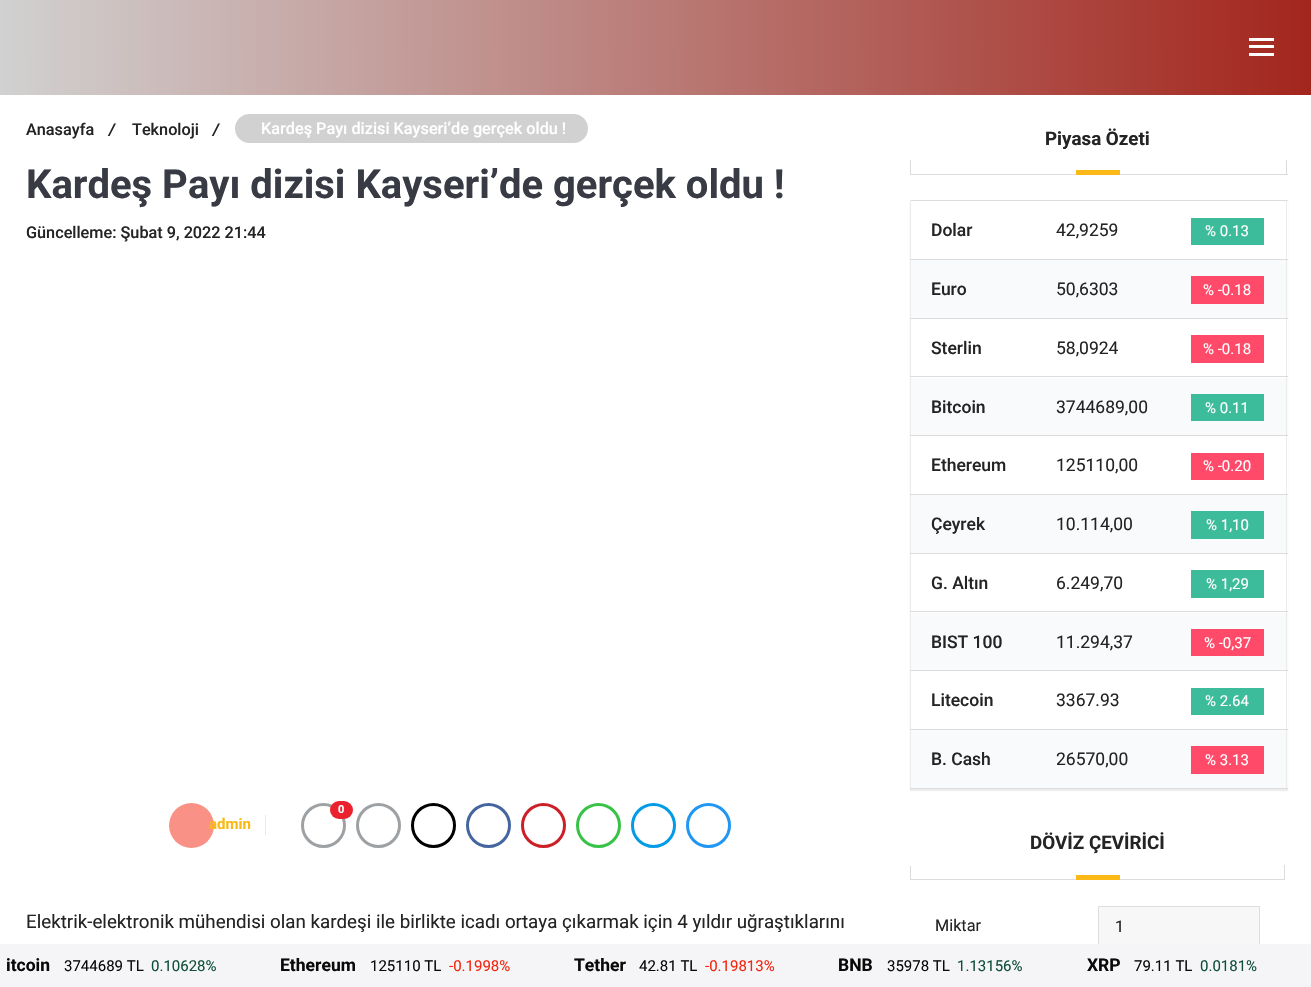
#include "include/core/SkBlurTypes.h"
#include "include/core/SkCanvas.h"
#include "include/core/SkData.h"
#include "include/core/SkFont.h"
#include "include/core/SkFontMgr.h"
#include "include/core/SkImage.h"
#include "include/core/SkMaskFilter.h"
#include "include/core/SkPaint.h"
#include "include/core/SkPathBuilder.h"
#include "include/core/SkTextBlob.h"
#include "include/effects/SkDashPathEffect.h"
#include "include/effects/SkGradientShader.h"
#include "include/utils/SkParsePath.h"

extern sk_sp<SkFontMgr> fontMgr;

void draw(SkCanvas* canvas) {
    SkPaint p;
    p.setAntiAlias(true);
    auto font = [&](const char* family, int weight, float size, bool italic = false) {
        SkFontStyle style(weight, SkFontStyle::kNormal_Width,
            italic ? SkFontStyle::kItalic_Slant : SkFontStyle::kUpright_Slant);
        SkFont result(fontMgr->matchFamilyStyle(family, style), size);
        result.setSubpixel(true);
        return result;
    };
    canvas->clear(0xFFFFFFFF);
    {
        const SkColor colors[] = {0xFFD1D1D1, 0xFFA3261D};
        const float stops[] = {0, 1};
        const SkPoint ends[] = {{0, 48}, {1311, 47}};
        p.setShader(SkGradientShader::MakeLinear(ends, colors, stops, 2, SkTileMode::kClamp));
        p.setAlpha(255);
    }
    canvas->drawRect(SkRect::MakeLTRB(0, 0, 1311, 95), p);
    p.setShader(nullptr);
    {
        const struct { float l, t, r, b; SkColor color; } items[] = {
            {1249, 45, 1274, 48, 0xFFFFFFFF},
            {1249, 38, 1274, 41, 0xFFFFFFFF},
            {1249, 53, 1274, 56, 0xFFFFFFFF},
        };
        for (auto [l, t, r, b, color] : items) {
            p.setColor(color);
            canvas->drawRect(SkRect::MakeLTRB(l, t, r, b), p);
        }
    }
    auto font1 = font("Roboto", 500, 16.25f);
    p.setColor(0xFF242424);
    canvas->drawString("Anasayfa", 26, 135, font1, p);
    auto font2 = font("Roboto", 700, 16.25f, true);
    canvas->drawString("/", 109, 135, font2, p);
    canvas->drawString("Teknoloji", 132, 135, font1, p);
    canvas->drawString("/", 213, 135, font2, p);
    p.setColor(0xFFD1D1D1);
    canvas->drawRoundRect(SkRect::MakeLTRB(235, 114, 588, 143), 14.5f, 14.5f, p);
    p.setColor(0xFFFFFFFF);
    canvas->drawString("Kardeş Payı dizisi Kayseri’de gerçek oldu !", 261, 134, font1, p);
    auto font3 = font("Roboto", 700, 40);
    p.setColor(0xFF383B44);
    canvas->drawString("Kardeş Payı dizisi Kayseri’de gerçek oldu !", 26, 198, font3, p);
    p.setColor(0xFF242424);
    canvas->drawString("Güncelleme: Şubat 9, 2022 21:44", 26, 238, font1, p);
    p.setStyle(SkPaint::kStroke_Style);
    p.setStrokeWidth(3);
    p.setColor(0xFF9DA1A4);
    canvas->drawCircle(323.5f, 825.5f, 21, p);
    p.setStyle(SkPaint::kFill_Style);
    p.setColor(0xFFEB212E);
    canvas->drawRoundRect(SkRect::MakeLTRB(330, 801, 353, 819), 9, 9, p);
    auto font4 = font("Roboto", 700, 11);
    p.setColor(0xFFFFFFFF);
    canvas->drawString("0", 338, 813, font4, p);
    p.setStyle(SkPaint::kStroke_Style);
    p.setColor(0xFF9DA1A4);
    canvas->drawCircle(378.5f, 825.5f, 21, p);
    p.setColor(0xFF000000);
    canvas->drawCircle(433.5f, 825.5f, 21, p);
    p.setColor(0xFF4565A0);
    canvas->drawCircle(488.5f, 825.5f, 21, p);
    p.setColor(0xFFCB2027);
    canvas->drawCircle(543.5f, 825.5f, 21, p);
    p.setColor(0xFF38C248);
    canvas->drawCircle(598.5f, 825.5f, 21, p);
    p.setColor(0xFF039BE5);
    canvas->drawCircle(653.5f, 825.5f, 21, p);
    p.setColor(0xFF2196F3);
    canvas->drawCircle(708.5f, 825.5f, 21, p);
    p.setStyle(SkPaint::kFill_Style);
    p.setColor(0xFFFA9186);
    canvas->drawCircle(191.5f, 825.5f, 22.5f, p);
    auto font5 = font("Roboto", 700, 15);
    p.setColor(0xFFFAB915);
    canvas->drawString("admin", 209, 829, font5, p);
    p.setColor(0xFFE9E9E9);
    canvas->drawRect(SkRect::MakeLTRB(265, 815, 266, 835), p);
    auto font6 = font("Roboto", 400, 18.75f);
    p.setColor(0xFF242424);
    canvas->drawString("Elektrik-elektronik mühendisi olan kardeşi ile birlikte icadı ortaya çıkarmak için 4 yıldır uğraştıklarını", 26, 928, font6, p);
    auto font7 = font("Roboto", 700, 18.75f);
    canvas->drawString("Piyasa Özeti", 1045, 145, font7, p);
    {
        const struct { float l, t, r, b; SkColor color; } items[] = {
            {1286, 160, 1287, 175, 0xFFDCDCDC},
            {910, 174, 1288, 175, 0xFFDCDCDC},
            {910, 160, 911, 175, 0xFFDCDCDC},
            {1076, 170, 1120, 175, 0xFFFAB917},
        };
        for (auto [l, t, r, b, color] : items) {
            p.setColor(color);
            canvas->drawRect(SkRect::MakeLTRB(l, t, r, b), p);
        }
    }
    canvas->save();
    canvas->clipPath(SkPathBuilder(SkPathFillType::kEvenOdd).moveTo(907, 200).lineTo(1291, 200).lineTo(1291, 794).lineTo(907, 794).close().moveTo(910, 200).lineTo(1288, 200).lineTo(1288, 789).lineTo(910, 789).close().detach(), true);
    p.setColor(0x12000000);
    p.setMaskFilter(SkMaskFilter::MakeBlur(kNormal_SkBlurStyle, 0.5f));
    canvas->drawRect(SkRect::MakeLTRB(910, 203, 1288, 791), p);
    p.setMaskFilter(nullptr);
    canvas->restore();
    {
        const struct { float l, t, r, b; SkColor color; } items[] = {
            {910, 200, 1288, 201, 0xFFDCDCDC},
            {911, 260, 1288, 318, 0xFFF9FAFC},
            {911, 378, 1288, 435, 0xFFF9FAFC},
            {911, 495, 1288, 553, 0xFFF9FAFC},
            {911, 613, 1288, 670, 0xFFF9FAFC},
            {911, 730, 1288, 788, 0xFFF9FAFC},
            {1286, 200, 1287, 789, 0xFFEAECEB},
            {910, 200, 911, 789, 0xFFEAECEB},
            {910, 259, 1288, 260, 0xFFDCDCDC},
        };
        for (auto [l, t, r, b, color] : items) {
            p.setColor(color);
            canvas->drawRect(SkRect::MakeLTRB(l, t, r, b), p);
        }
    }
    auto font8 = font("Roboto", 500, 17.5f);
    p.setColor(0xFF242424);
    canvas->drawString("Dolar", 931, 236, font8, p);
    auto font9 = font("Roboto", 400, 17.5f);
    canvas->drawString("42,9259", 1056, 236, font9, p);
    p.setColor(0xFF3CBC9B);
    canvas->drawRect(SkRect::MakeLTRB(1191, 218, 1264, 245), p);
    auto font10 = font("Roboto", 400, 15);
    p.setColor(0xFFFFFFFF);
    canvas->drawString("% 0.13", 1205, 236, font10, p);
    p.setColor(0xFFDCDCDC);
    canvas->drawRect(SkRect::MakeLTRB(910, 318, 1288, 319), p);
    p.setColor(0xFF242424);
    canvas->drawString("Euro", 931, 295, font8, p);
    canvas->drawString("50,6303", 1056, 295, font9, p);
    p.setColor(0xFFFF4A69);
    canvas->drawRect(SkRect::MakeLTRB(1191, 276, 1264, 304), p);
    p.setColor(0xFFFFFFFF);
    canvas->drawString("% -0.18", 1203, 295, font10, p);
    p.setColor(0xFFDCDCDC);
    canvas->drawRect(SkRect::MakeLTRB(910, 376, 1288, 377), p);
    p.setColor(0xFF242424);
    canvas->drawString("Sterlin", 931, 354, font8, p);
    canvas->drawString("58,0924", 1056, 354, font9, p);
    p.setColor(0xFFFF4A69);
    canvas->drawRect(SkRect::MakeLTRB(1191, 335, 1264, 363), p);
    p.setColor(0xFFFFFFFF);
    canvas->drawString("% -0.18", 1203, 354, font10, p);
    p.setColor(0xFFDCDCDC);
    canvas->drawRect(SkRect::MakeLTRB(910, 435, 1288, 436), p);
    p.setColor(0xFF242424);
    canvas->drawString("Bitcoin", 931, 413, font8, p);
    canvas->drawString("3744689,00", 1056, 413, font9, p);
    p.setColor(0xFF3CBC9B);
    canvas->drawRect(SkRect::MakeLTRB(1191, 394, 1264, 421), p);
    p.setColor(0xFFFFFFFF);
    canvas->drawString("% 0.11", 1205, 413, font10, p);
    p.setColor(0xFFDCDCDC);
    canvas->drawRect(SkRect::MakeLTRB(910, 494, 1288, 495), p);
    p.setColor(0xFF242424);
    canvas->drawString("Ethereum", 931, 471, font8, p);
    canvas->drawString("125110,00", 1056, 471, font9, p);
    p.setColor(0xFFFF4A69);
    canvas->drawRect(SkRect::MakeLTRB(1191, 453, 1264, 480), p);
    p.setColor(0xFFFFFFFF);
    canvas->drawString("% -0.20", 1203, 471, font10, p);
    p.setColor(0xFFDCDCDC);
    canvas->drawRect(SkRect::MakeLTRB(910, 553, 1288, 554), p);
    p.setColor(0xFF242424);
    canvas->drawString("Çeyrek", 931, 530, font8, p);
    canvas->drawString("10.114,00", 1056, 530, font9, p);
    p.setColor(0xFF3CBC9B);
    canvas->drawRect(SkRect::MakeLTRB(1191, 511, 1264, 539), p);
    p.setColor(0xFFFFFFFF);
    canvas->drawString("% 1,10", 1206, 530, font10, p);
    p.setColor(0xFFDCDCDC);
    canvas->drawRect(SkRect::MakeLTRB(910, 611, 1288, 612), p);
    p.setColor(0xFF242424);
    canvas->drawString("G. Altın", 931, 589, font8, p);
    canvas->drawString("6.249,70", 1056, 589, font9, p);
    p.setColor(0xFF3CBC9B);
    canvas->drawRect(SkRect::MakeLTRB(1191, 570, 1264, 598), p);
    p.setColor(0xFFFFFFFF);
    canvas->drawString("% 1,29", 1206, 589, font10, p);
    p.setColor(0xFFDCDCDC);
    canvas->drawRect(SkRect::MakeLTRB(910, 670, 1288, 671), p);
    p.setColor(0xFF242424);
    canvas->drawString("BIST 100", 931, 648, font8, p);
    canvas->drawString("11.294,37", 1056, 648, font9, p);
    p.setColor(0xFFFF4A69);
    canvas->drawRect(SkRect::MakeLTRB(1191, 629, 1264, 656), p);
    p.setColor(0xFFFFFFFF);
    canvas->drawString("% -0,37", 1204, 648, font10, p);
    p.setColor(0xFFDCDCDC);
    canvas->drawRect(SkRect::MakeLTRB(910, 729, 1288, 730), p);
    p.setColor(0xFF242424);
    canvas->drawString("Litecoin", 931, 706, font8, p);
    canvas->drawString("3367.93", 1056, 706, font9, p);
    p.setColor(0xFF3CBC9B);
    canvas->drawRect(SkRect::MakeLTRB(1191, 688, 1264, 715), p);
    p.setColor(0xFFFFFFFF);
    canvas->drawString("% 2.64", 1205, 706, font10, p);
    p.setColor(0xFFDCDCDC);
    canvas->drawRect(SkRect::MakeLTRB(910, 788, 1288, 789), p);
    p.setColor(0xFF242424);
    canvas->drawString("B. Cash", 931, 765, font8, p);
    canvas->drawString("26570,00", 1056, 765, font9, p);
    p.setColor(0xFFFF4A69);
    canvas->drawRect(SkRect::MakeLTRB(1191, 746, 1264, 774), p);
    p.setColor(0xFFFFFFFF);
    canvas->drawString("% 3.13", 1205, 765, font10, p);
    p.setColor(0xFF242424);
    canvas->drawString("DÖVİZ ÇEVİRİCİ", 1030, 849, font7, p);
    {
        const struct { float l, t, r, b; SkColor color; } items[] = {
            {1284, 865, 1285, 880, 0xFFDCDCDC},
            {910, 879, 1285, 880, 0xFFDCDCDC},
            {910, 866, 911, 880, 0xFFDCDCDC},
            {1076, 875, 1120, 880, 0xFFFAB917},
        };
        for (auto [l, t, r, b, color] : items) {
            p.setColor(color);
            canvas->drawRect(SkRect::MakeLTRB(l, t, r, b), p);
        }
    }
    auto font11 = font("Roboto", 400, 16.25f);
    p.setColor(0xFF242424);
    canvas->drawString("Miktar", 935, 931, font11, p);
    p.setColor(0xFFF7F7F7);
    canvas->drawRect(SkRect::MakeLTRB(1099, 907, 1259, 944), p);
    p.setStyle(SkPaint::kStroke_Style);
    p.setStrokeWidth(1);
    p.setColor(0xFFDEDEDE);
    canvas->drawRect(SkRect::MakeLTRB(1098.5f, 906.5f, 1259.5f, 945.5f), p);
    p.setStyle(SkPaint::kFill_Style);
    p.setColor(0xFF242424);
    canvas->drawString("1", 1115, 932, font11, p);
    p.setColor(0xFFF5F5F7);
    canvas->drawRect(SkRect::MakeLTRB(0, 944, 1311, 987), p);
    auto font12 = font("Roboto", 700, 17.5f);
    p.setColor(0xFF0A0A0A);
    canvas->drawString("itcoin", 6, 971, font12, p);
    canvas->drawString("3744689 TL", 64, 971, font10, p);
    p.setColor(0xFF104F38);
    canvas->drawString("0.10628%", 151, 971, font10, p);
    p.setColor(0xFF0A0A0A);
    canvas->drawString("Ethereum", 280, 971, font12, p);
    canvas->drawString("125110 TL", 370, 971, font10, p);
    p.setColor(0xFFF3250E);
    canvas->drawString("-0.1998%", 449, 971, font10, p);
    p.setColor(0xFF0A0A0A);
    canvas->drawString("Tether", 574, 971, font12, p);
    canvas->drawString("42.81 TL", 639, 971, font10, p);
    p.setColor(0xFFF3250E);
    canvas->drawString("-0.19813%", 705, 971, font10, p);
    p.setColor(0xFF0A0A0A);
    canvas->drawString("BNB", 838, 971, font12, p);
    canvas->drawString("35978 TL", 887, 971, font10, p);
    p.setColor(0xFF104F38);
    canvas->drawString("1.13156%", 957, 971, font10, p);
    p.setColor(0xFF0A0A0A);
    canvas->drawString("XRP", 1087, 971, font12, p);
    canvas->drawString("79.11 TL", 1134, 971, font10, p);
    p.setColor(0xFF104F38);
    canvas->drawString("0.0181%", 1200, 971, font10, p);
}
